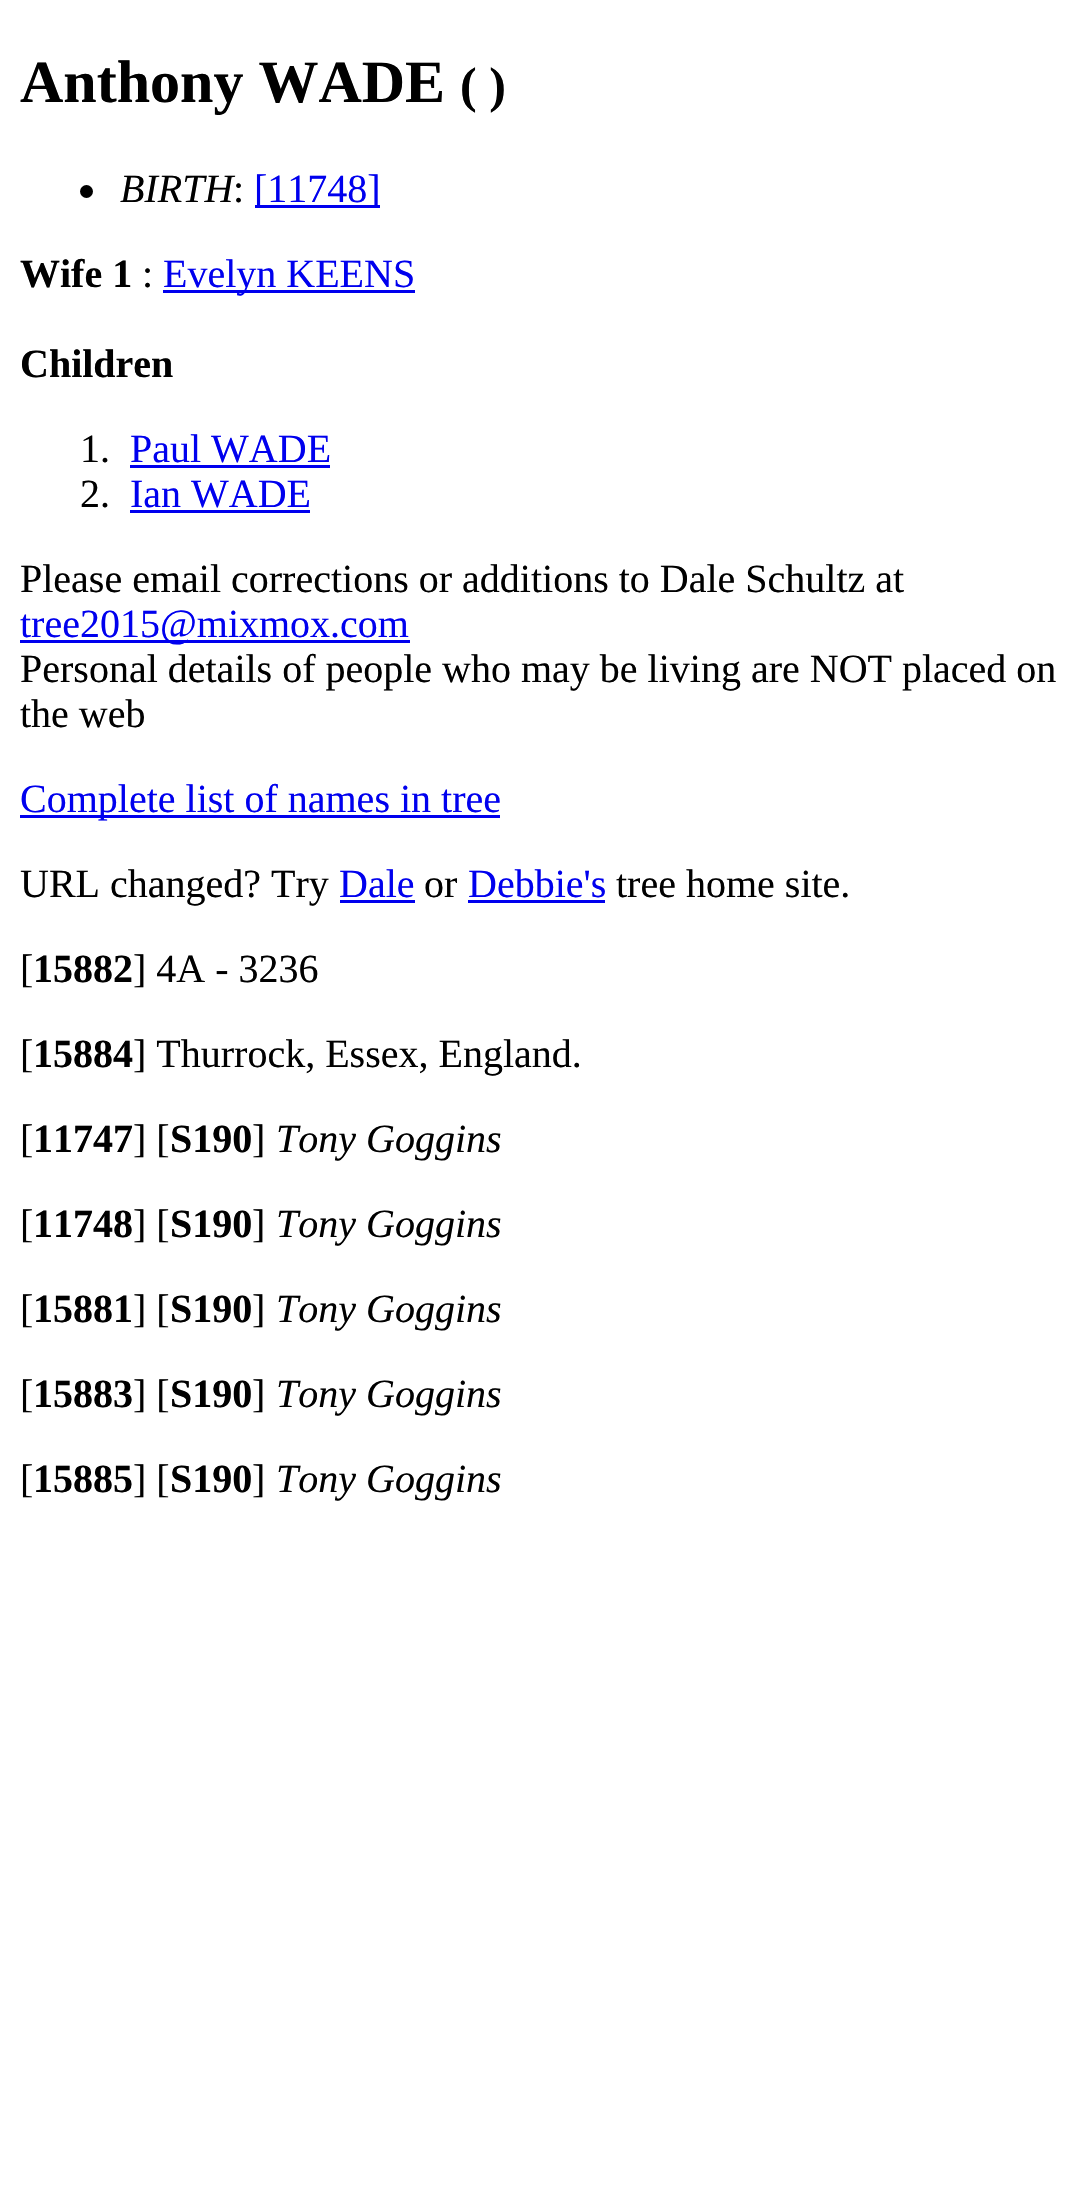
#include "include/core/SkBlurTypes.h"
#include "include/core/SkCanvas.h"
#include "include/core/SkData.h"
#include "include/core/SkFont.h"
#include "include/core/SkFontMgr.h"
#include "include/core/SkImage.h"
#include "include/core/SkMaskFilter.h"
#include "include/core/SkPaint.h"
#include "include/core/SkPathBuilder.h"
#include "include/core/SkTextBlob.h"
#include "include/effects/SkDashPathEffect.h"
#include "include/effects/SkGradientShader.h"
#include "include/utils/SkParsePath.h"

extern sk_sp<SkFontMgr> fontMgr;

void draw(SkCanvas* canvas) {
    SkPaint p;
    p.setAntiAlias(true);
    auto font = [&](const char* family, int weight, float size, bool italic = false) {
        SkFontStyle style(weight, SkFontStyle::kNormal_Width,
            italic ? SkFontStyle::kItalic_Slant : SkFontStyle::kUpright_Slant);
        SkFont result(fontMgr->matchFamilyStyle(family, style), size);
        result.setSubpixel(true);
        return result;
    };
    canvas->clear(0xFFFFFFFF);
    auto font1 = font("Liberation Serif", 700, 60);
    p.setColor(0xFF000000);
    canvas->drawString("Anthony WADE", 20, 102, font1, p);
    auto font2 = font("Liberation Serif", 700, 50);
    canvas->drawString("( )", 460, 102, font2, p);
    canvas->drawCircle(86.5f, 191.5f, 6.5f, p);
    auto font3 = font("Liberation Serif", 400, 40, true);
    canvas->drawString("BIRTH", 120, 202, font3, p);
    auto font4 = font("Liberation Serif", 400, 40);
    canvas->drawString(":", 233, 202, font4, p);
    p.setColor(0xFF0000EE);
    canvas->drawRect(SkRect::MakeLTRB(255, 205, 380, 208), p);
    canvas->drawString("[11748]", 254, 202, font4, p);
    auto font5 = font("Liberation Serif", 700, 40);
    p.setColor(0xFF000000);
    canvas->drawString("Wife 1", 20, 287, font5, p);
    canvas->drawString(":", 142, 287, font4, p);
    p.setColor(0xFF0000EE);
    canvas->drawRect(SkRect::MakeLTRB(163, 290, 415, 293), p);
    canvas->drawString("Evelyn KEENS", 163, 287, font4, p);
    p.setColor(0xFF000000);
    canvas->drawString("Children", 20, 377, font5, p);
    canvas->drawString("1.", 80, 462, font4, p);
    p.setColor(0xFF0000EE);
    canvas->drawString("Paul WADE", 130, 462, font4, p);
    canvas->drawRect(SkRect::MakeLTRB(130, 465, 330, 468), p);
    p.setColor(0xFF000000);
    canvas->drawString("2.", 80, 507, font4, p);
    p.setColor(0xFF0000EE);
    canvas->drawString("Ian WADE", 130, 507, font4, p);
    canvas->drawRect(SkRect::MakeLTRB(130, 510, 310, 513), p);
    p.setColor(0xFF000000);
    canvas->drawString("Please email corrections or additions to Dale Schultz at", 20, 592, font4, p);
    p.setColor(0xFF0000EE);
    canvas->drawRect(SkRect::MakeLTRB(20, 640, 410, 643), p);
    canvas->drawString("tree2015@mixmox.com", 20, 637, font4, p);
    p.setColor(0xFF000000);
    canvas->drawString("Personal details of people who may be living are NOT placed on", 20, 682, font4, p);
    canvas->drawString("the web", 20, 727, font4, p);
    p.setColor(0xFF0000EE);
    canvas->drawRect(SkRect::MakeLTRB(20, 815, 500, 818), p);
    canvas->drawString("Complete list of names in tree", 20, 812, font4, p);
    p.setColor(0xFF000000);
    canvas->drawString("URL changed? Try", 20, 897, font4, p);
    p.setColor(0xFF0000EE);
    canvas->drawString("Dale", 339, 897, font4, p);
    canvas->drawRect(SkRect::MakeLTRB(340, 900, 415, 903), p);
    p.setColor(0xFF000000);
    canvas->drawString("or", 424, 897, font4, p);
    p.setColor(0xFF0000EE);
    canvas->drawString("Debbie's", 468, 897, font4, p);
    canvas->drawRect(SkRect::MakeLTRB(468, 900, 605, 903), p);
    p.setColor(0xFF000000);
    canvas->drawString("tree home site.", 616, 897, font4, p);
    canvas->drawString("[", 20, 982, font4, p);
    canvas->drawString("15882", 33, 982, font5, p);
    canvas->drawString("] 4A - 3236", 133, 982, font4, p);
    canvas->drawString("[", 20, 1067, font4, p);
    canvas->drawString("15884", 33, 1067, font5, p);
    canvas->drawString("] Thurrock, Essex, England.", 133, 1067, font4, p);
    canvas->drawString("[", 20, 1152, font4, p);
    canvas->drawString("11747", 33, 1152, font5, p);
    canvas->drawString("] [", 133, 1152, font4, p);
    canvas->drawString("S190", 170, 1152, font5, p);
    canvas->drawString("]", 252, 1152, font4, p);
    canvas->drawString("Tony Goggins", 276, 1152, font3, p);
    canvas->drawString("[", 20, 1237, font4, p);
    canvas->drawString("11748", 33, 1237, font5, p);
    canvas->drawString("] [", 133, 1237, font4, p);
    canvas->drawString("S190", 170, 1237, font5, p);
    canvas->drawString("]", 252, 1237, font4, p);
    canvas->drawString("Tony Goggins", 276, 1237, font3, p);
    canvas->drawString("[", 20, 1322, font4, p);
    canvas->drawString("15881", 33, 1322, font5, p);
    canvas->drawString("] [", 133, 1322, font4, p);
    canvas->drawString("S190", 170, 1322, font5, p);
    canvas->drawString("]", 252, 1322, font4, p);
    canvas->drawString("Tony Goggins", 276, 1322, font3, p);
    canvas->drawString("[", 20, 1407, font4, p);
    canvas->drawString("15883", 33, 1407, font5, p);
    canvas->drawString("] [", 133, 1407, font4, p);
    canvas->drawString("S190", 170, 1407, font5, p);
    canvas->drawString("]", 252, 1407, font4, p);
    canvas->drawString("Tony Goggins", 276, 1407, font3, p);
    canvas->drawString("[", 20, 1492, font4, p);
    canvas->drawString("15885", 33, 1492, font5, p);
    canvas->drawString("] [", 133, 1492, font4, p);
    canvas->drawString("S190", 170, 1492, font5, p);
    canvas->drawString("]", 252, 1492, font4, p);
    canvas->drawString("Tony Goggins", 276, 1492, font3, p);
}
